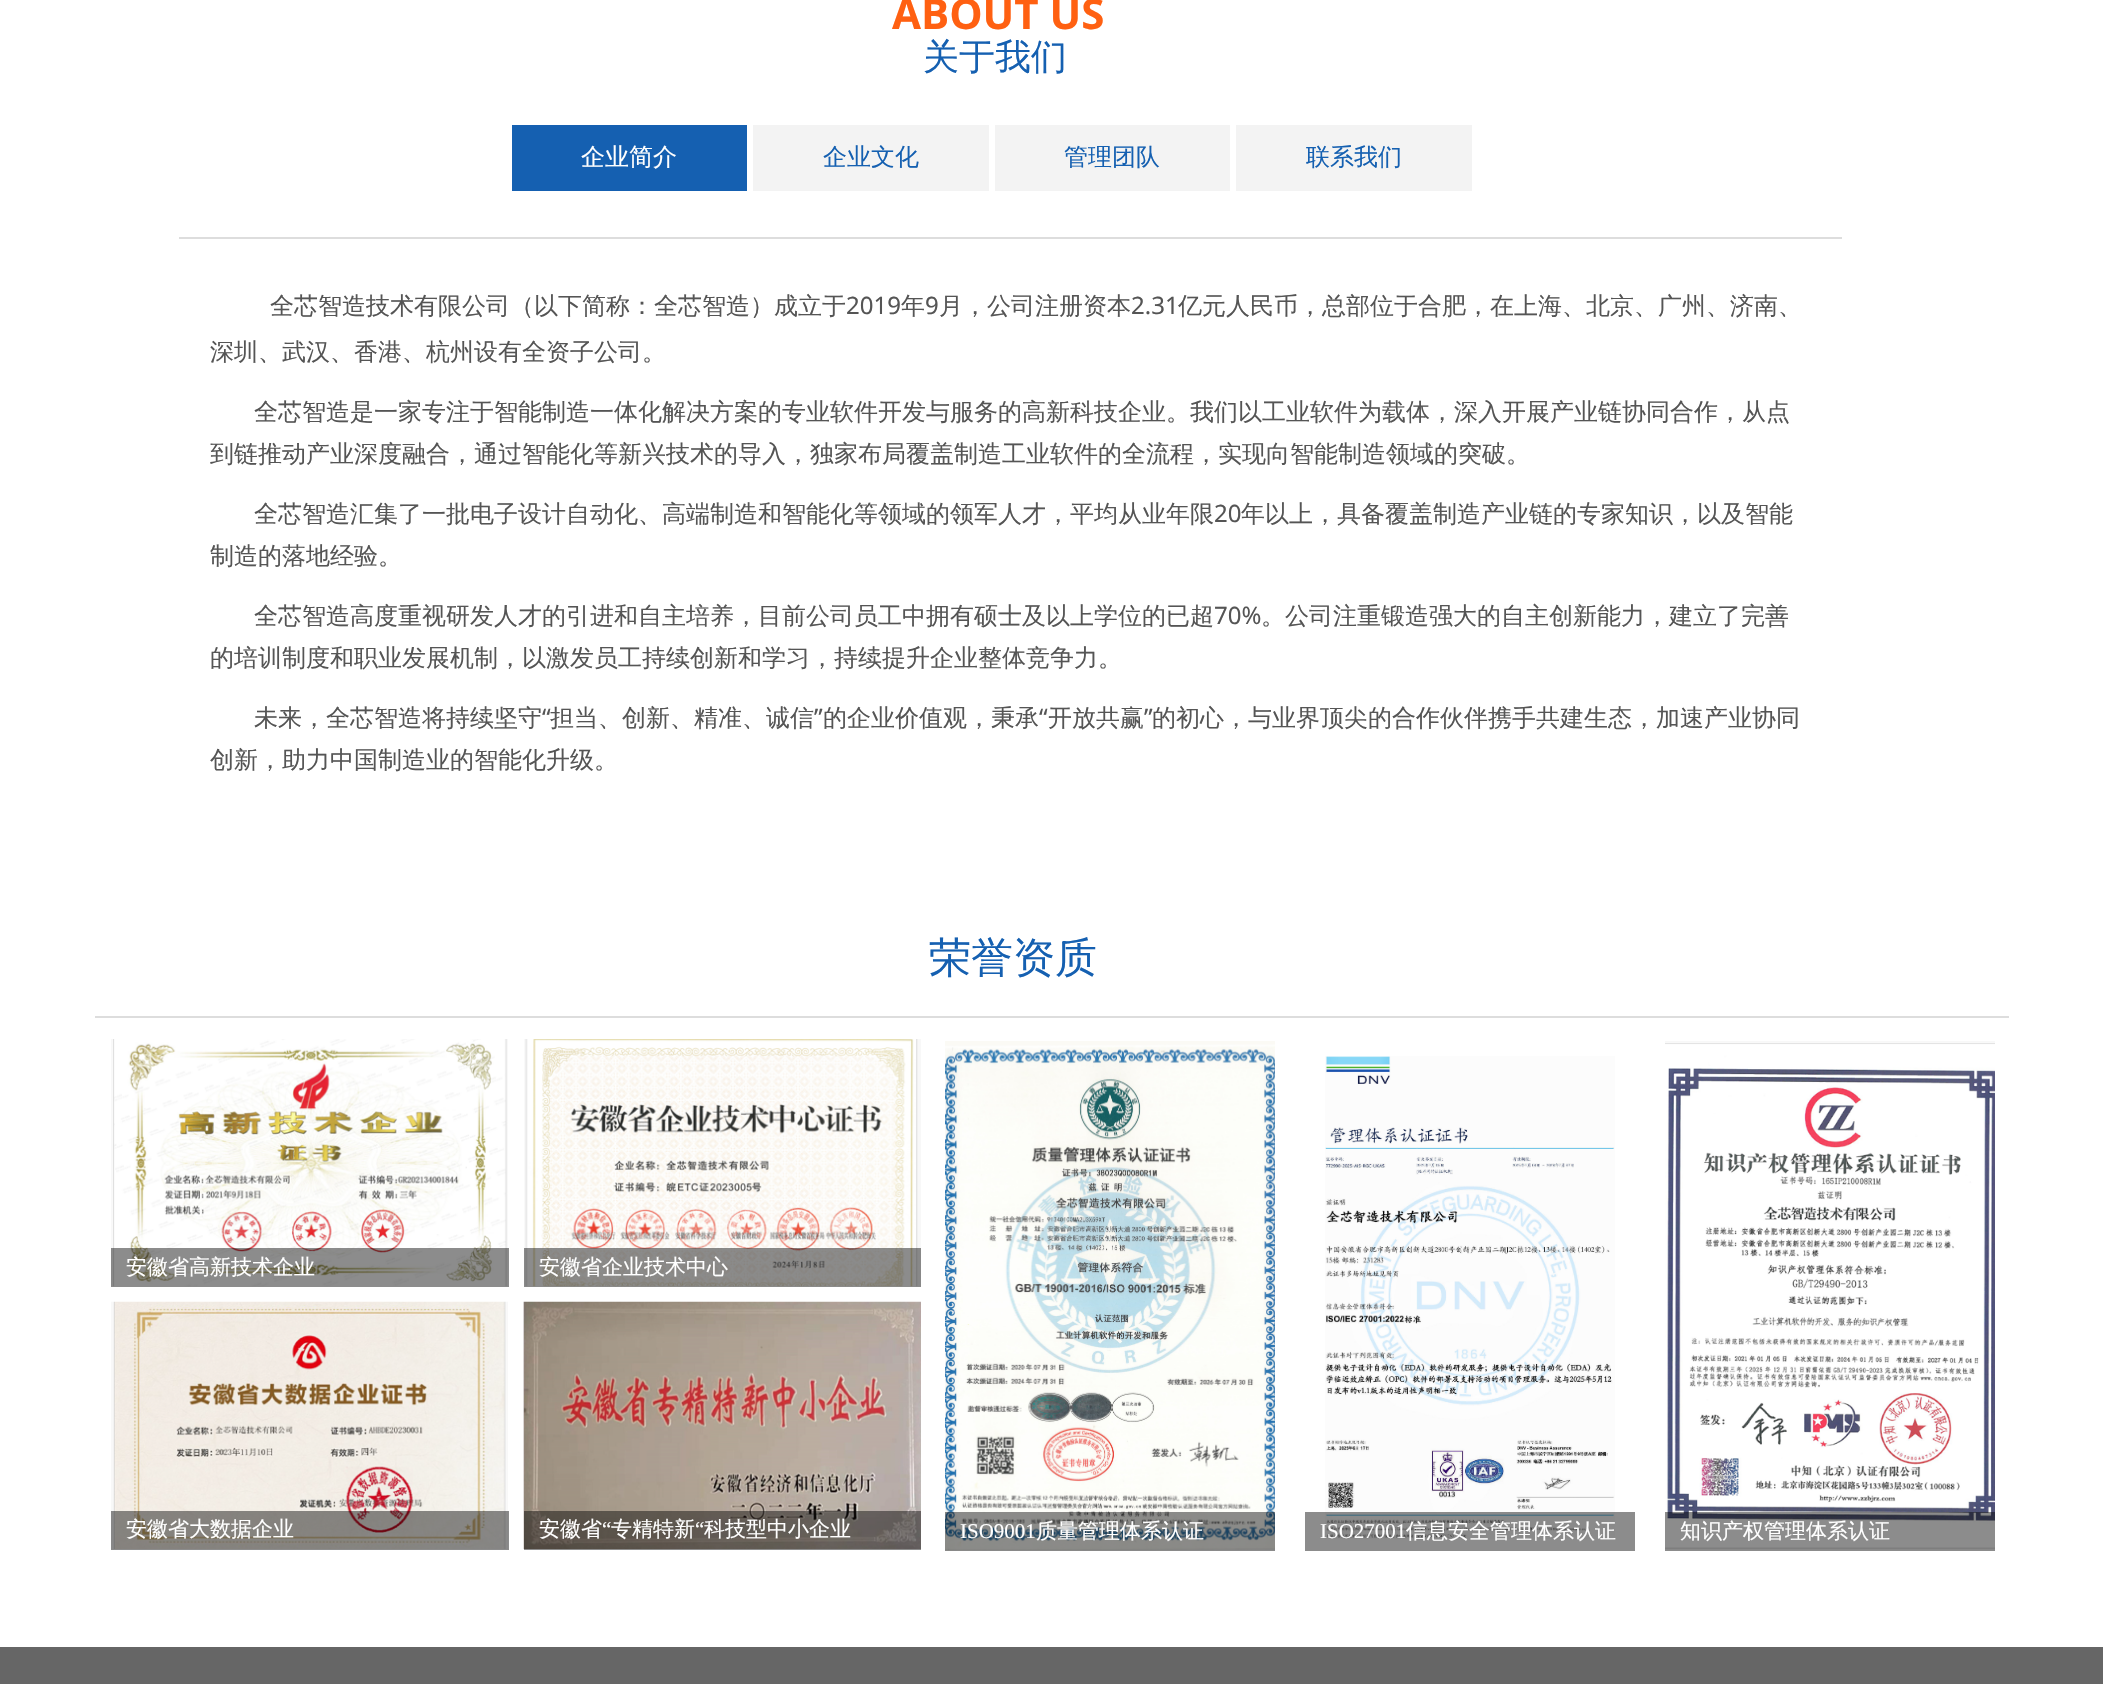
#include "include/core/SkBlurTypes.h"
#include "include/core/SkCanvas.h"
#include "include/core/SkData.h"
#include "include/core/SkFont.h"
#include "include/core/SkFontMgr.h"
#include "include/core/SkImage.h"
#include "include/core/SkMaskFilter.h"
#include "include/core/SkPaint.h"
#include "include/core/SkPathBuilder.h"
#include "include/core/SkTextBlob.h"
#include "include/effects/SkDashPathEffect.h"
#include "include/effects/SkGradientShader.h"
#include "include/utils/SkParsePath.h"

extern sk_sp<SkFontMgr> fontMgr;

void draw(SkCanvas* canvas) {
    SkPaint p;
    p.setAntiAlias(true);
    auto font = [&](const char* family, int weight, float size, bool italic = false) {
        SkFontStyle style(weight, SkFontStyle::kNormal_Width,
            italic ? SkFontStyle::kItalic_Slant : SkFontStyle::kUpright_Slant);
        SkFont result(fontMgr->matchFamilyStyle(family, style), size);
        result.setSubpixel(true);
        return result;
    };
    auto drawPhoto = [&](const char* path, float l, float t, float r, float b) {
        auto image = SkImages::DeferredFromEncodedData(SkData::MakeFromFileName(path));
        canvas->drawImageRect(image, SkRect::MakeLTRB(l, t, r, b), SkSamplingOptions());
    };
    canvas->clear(0xFFFFFFFF);
    auto font1 = font("Open Sans", 700, 42);
    p.setColor(0xFFFF6011);
    canvas->drawString("ABOUT US", 892, 29, font1, p);
    auto font2 = font("WenQuanYi Zen Hei", 500, 36);
    p.setColor(0xFF1560B1);
    canvas->drawString("关于我们", 923, 69, font2, p);
    canvas->drawRect(SkRect::MakeLTRB(512, 125, 747, 191), p);
    auto font3 = font("WenQuanYi Zen Hei", 500, 24);
    p.setColor(0xFFFFFFFF);
    canvas->drawString("企业简介", 581, 165, font3, p);
    p.setColor(0xFFF3F3F3);
    canvas->drawRect(SkRect::MakeLTRB(753, 125, 989, 191), p);
    p.setColor(0xFF1560B1);
    canvas->drawString("企业文化", 823, 165, font3, p);
    p.setColor(0xFFF3F3F3);
    canvas->drawRect(SkRect::MakeLTRB(995, 125, 1230, 191), p);
    p.setColor(0xFF1560B1);
    canvas->drawString("管理团队", 1064, 165, font3, p);
    p.setColor(0xFFF3F3F3);
    canvas->drawRect(SkRect::MakeLTRB(1236, 125, 1472, 191), p);
    p.setColor(0xFF1560B1);
    canvas->drawString("联系我们", 1306, 165, font3, p);
    p.setColor(0xFFDDDDDD);
    canvas->drawRect(SkRect::MakeLTRB(179, 237, 1842, 239), p);
    p.setColor(0xFF555555);
    canvas->drawString("全芯智造技术有限公司（以下简称：全芯智造）成立于", 270, 314, font3, p);
    auto font4 = font("Noto Sans", 400, 24);
    canvas->drawString("2019", 846, 314, font4, p);
    canvas->drawString("年", 901, 314, font3, p);
    canvas->drawString("9", 925, 314, font4, p);
    canvas->drawString("月，公司注册资本", 939, 314, font3, p);
    canvas->drawString("2.31", 1131, 314, font4, p);
    {
        const struct { const char* s; float x, y; } items[] = {
            {"亿元人民币，总部位于合肥，在上海、北京、广州、济南、", 1178, 314},
            {"深圳、武汉、香港、杭州设有全资子公司。", 210, 360},
            {"全芯智造是一家专注于智能制造一体化解决方案的专业软件开发与服务的高新科技企业。我们以工业软件为载体，深入开展产业链协同合作，从点", 254, 420},
            {"到链推动产业深度融合，通过智能化等新兴技术的导入，独家布局覆盖制造工业软件的全流程，实现向智能制造领域的突破。", 210, 462},
            {"全芯智造汇集了一批电子设计自动化、高端制造和智能化等领域的领军人才，平均从业年限", 254, 522},
        };
        for (auto [s, x, y] : items) {
            canvas->drawString(s, x, y, font3, p);
        }
    }
    canvas->drawString("20", 1214, 522, font4, p);
    {
        const struct { const char* s; float x, y; } items[] = {
            {"年以上，具备覆盖制造产业链的专家知识，以及智能", 1241, 522},
            {"制造的落地经验。", 210, 564},
            {"全芯智造高度重视研发人才的引进和自主培养，目前公司员工中拥有硕士及以上学位的已超", 254, 624},
        };
        for (auto [s, x, y] : items) {
            canvas->drawString(s, x, y, font3, p);
        }
    }
    canvas->drawString("70%", 1214, 624, font4, p);
    {
        const struct { const char* s; float x, y; } items[] = {
            {"。公司注重锻造强大的自主创新能力，建立了完善", 1261, 624},
            {"的培训制度和职业发展机制，以激发员工持续创新和学习，持续提升企业整体竞争力。", 210, 666},
            {"未来，全芯智造将持续坚守", 254, 726},
        };
        for (auto [s, x, y] : items) {
            canvas->drawString(s, x, y, font3, p);
        }
    }
    canvas->drawString("“", 542, 726, font4, p);
    canvas->drawString("担当、创新、精准、诚信", 550, 726, font3, p);
    canvas->drawString("”", 814, 726, font4, p);
    canvas->drawString("的企业价值观，秉承", 823, 726, font3, p);
    canvas->drawString("“", 1039, 726, font4, p);
    canvas->drawString("开放共赢", 1048, 726, font3, p);
    canvas->drawString("”", 1144, 726, font4, p);
    canvas->drawString("的初心，与业界顶尖的合作伙伴携手共建生态，加速产业协同", 1152, 726, font3, p);
    canvas->drawString("创新，助力中国制造业的智能化升级。", 210, 768, font3, p);
    auto font5 = font("WenQuanYi Zen Hei", 500, 42);
    p.setColor(0xFF1560B1);
    canvas->drawString("荣誉资质", 929, 972, font5, p);
    p.setColor(0xFFDDDDDD);
    canvas->drawRect(SkRect::MakeLTRB(95, 1016, 2009, 1018), p);
    drawPhoto("media/1.png", 111, 1039, 508, 1287);
    p.setColor(0x73000000);
    canvas->drawRect(SkRect::MakeLTRB(111, 1248, 509, 1287), p);
    auto font6 = font("WenQuanYi Zen Hei", 500, 21);
    p.setColor(0xFFFFFFFF);
    canvas->drawString("安徽省高新技术企业", 126, 1274, font6, p);
    drawPhoto("media/2.png", 524, 1039, 921, 1287);
    p.setColor(0x73000000);
    canvas->drawRect(SkRect::MakeLTRB(524, 1248, 921, 1287), p);
    p.setColor(0xFFFFFFFF);
    canvas->drawString("安徽省企业技术中心", 539, 1274, font6, p);
    drawPhoto("media/3.png", 111, 1301, 508, 1549);
    p.setColor(0x73000000);
    canvas->drawRect(SkRect::MakeLTRB(111, 1511, 509, 1550), p);
    p.setColor(0xFFFFFFFF);
    canvas->drawString("安徽省大数据企业", 126, 1536, font6, p);
    drawPhoto("media/4.png", 523, 1301, 921, 1549);
    p.setColor(0x73000000);
    canvas->drawRect(SkRect::MakeLTRB(524, 1511, 921, 1550), p);
    p.setColor(0xFFFFFFFF);
    canvas->drawString("安徽省", 539, 1536, font6, p);
    auto font7 = font("Liberation Serif", 400, 21);
    canvas->drawString("“", 602, 1536, font7, p);
    canvas->drawString("专精特新", 611, 1536, font6, p);
    canvas->drawString("“", 695, 1536, font7, p);
    canvas->drawString("科技型中小企业", 704, 1536, font6, p);
    drawPhoto("media/5.png", 945, 1041, 1275, 1551);
    p.setColor(0x73000000);
    canvas->drawRect(SkRect::MakeLTRB(945, 1512, 1275, 1551), p);
    p.setColor(0xFFFFFFFF);
    canvas->drawString("ISO9001", 960, 1538, font7, p);
    canvas->drawString("质量管理体系认证", 1036, 1538, font6, p);
    drawPhoto("media/6.png", 1325, 1056, 1615, 1539);
    p.setColor(0x73000000);
    canvas->drawRect(SkRect::MakeLTRB(1305, 1512, 1635, 1551), p);
    p.setColor(0xFFFFFFFF);
    canvas->drawString("ISO27001", 1320, 1538, font7, p);
    canvas->drawString("信息安全管理体系认证", 1406, 1538, font6, p);
    drawPhoto("media/7.png", 1665, 1041, 1995, 1550);
    p.setColor(0x73000000);
    canvas->drawRect(SkRect::MakeLTRB(1665, 1512, 1995, 1551), p);
    p.setColor(0xFFFFFFFF);
    canvas->drawString("知识产权管理体系认证", 1680, 1538, font6, p);
    p.setColor(0xFF666666);
    canvas->drawRect(SkRect::MakeLTRB(0, 1647, 2103, 1684), p);
}
